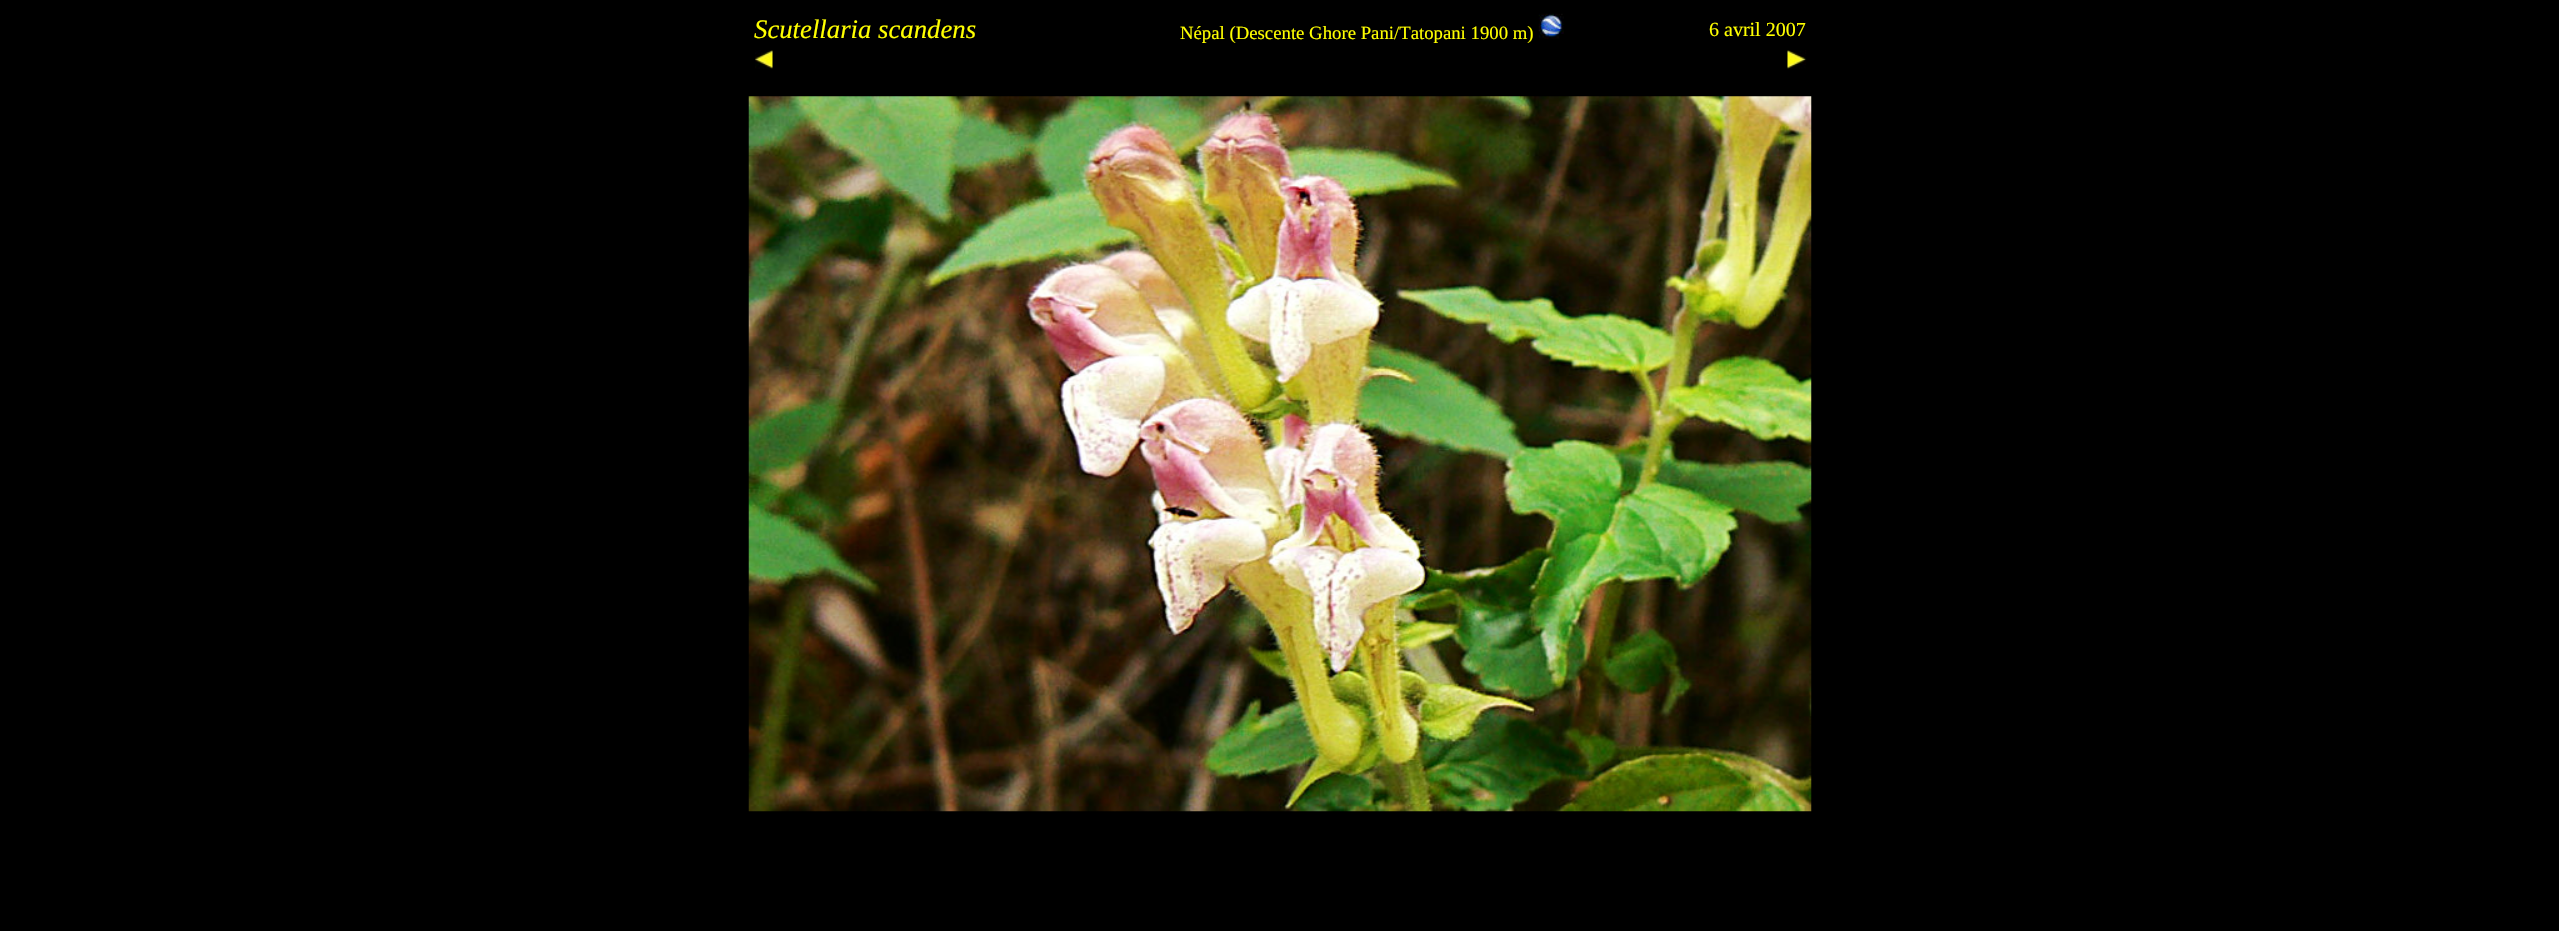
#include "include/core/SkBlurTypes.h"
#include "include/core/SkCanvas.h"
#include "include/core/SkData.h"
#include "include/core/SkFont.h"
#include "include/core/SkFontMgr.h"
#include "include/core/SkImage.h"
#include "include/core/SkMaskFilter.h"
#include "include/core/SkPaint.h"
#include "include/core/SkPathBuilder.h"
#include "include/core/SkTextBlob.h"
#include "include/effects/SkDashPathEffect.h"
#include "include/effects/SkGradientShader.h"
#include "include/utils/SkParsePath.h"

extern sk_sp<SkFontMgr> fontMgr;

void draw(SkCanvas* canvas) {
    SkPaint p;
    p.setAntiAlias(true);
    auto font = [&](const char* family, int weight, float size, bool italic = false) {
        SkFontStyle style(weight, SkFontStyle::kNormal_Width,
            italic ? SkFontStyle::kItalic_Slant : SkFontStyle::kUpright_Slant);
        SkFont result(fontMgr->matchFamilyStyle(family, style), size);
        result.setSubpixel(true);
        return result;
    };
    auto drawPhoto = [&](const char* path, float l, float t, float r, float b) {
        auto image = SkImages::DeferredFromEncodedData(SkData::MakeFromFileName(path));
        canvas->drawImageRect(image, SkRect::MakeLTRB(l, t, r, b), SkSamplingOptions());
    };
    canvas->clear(0xFF000000);
    auto font1 = font("Liberation Serif", 400, 26.75f, true);
    p.setColor(0xFFFFFF00);
    canvas->drawString("Scutellaria scandens", 754, 38, font1, p);
    auto font2 = font("Liberation Serif", 400, 18.75f);
    canvas->drawString("Népal (Descente Ghore Pani/Tatopani 1900 m)", 1180, 39, font2, p);
    drawPhoto("media/1.png", 1538, 13, 1564, 39);
    auto font3 = font("Liberation Serif", 400, 20);
    canvas->drawString("6 avril 2007", 1709, 36, font3, p);
    drawPhoto("media/2.png", 755, 50, 773, 69);
    drawPhoto("media/3.png", 1787, 50, 1807, 69);
    drawPhoto("media/4.png", 748, 96, 1812, 812);
}
